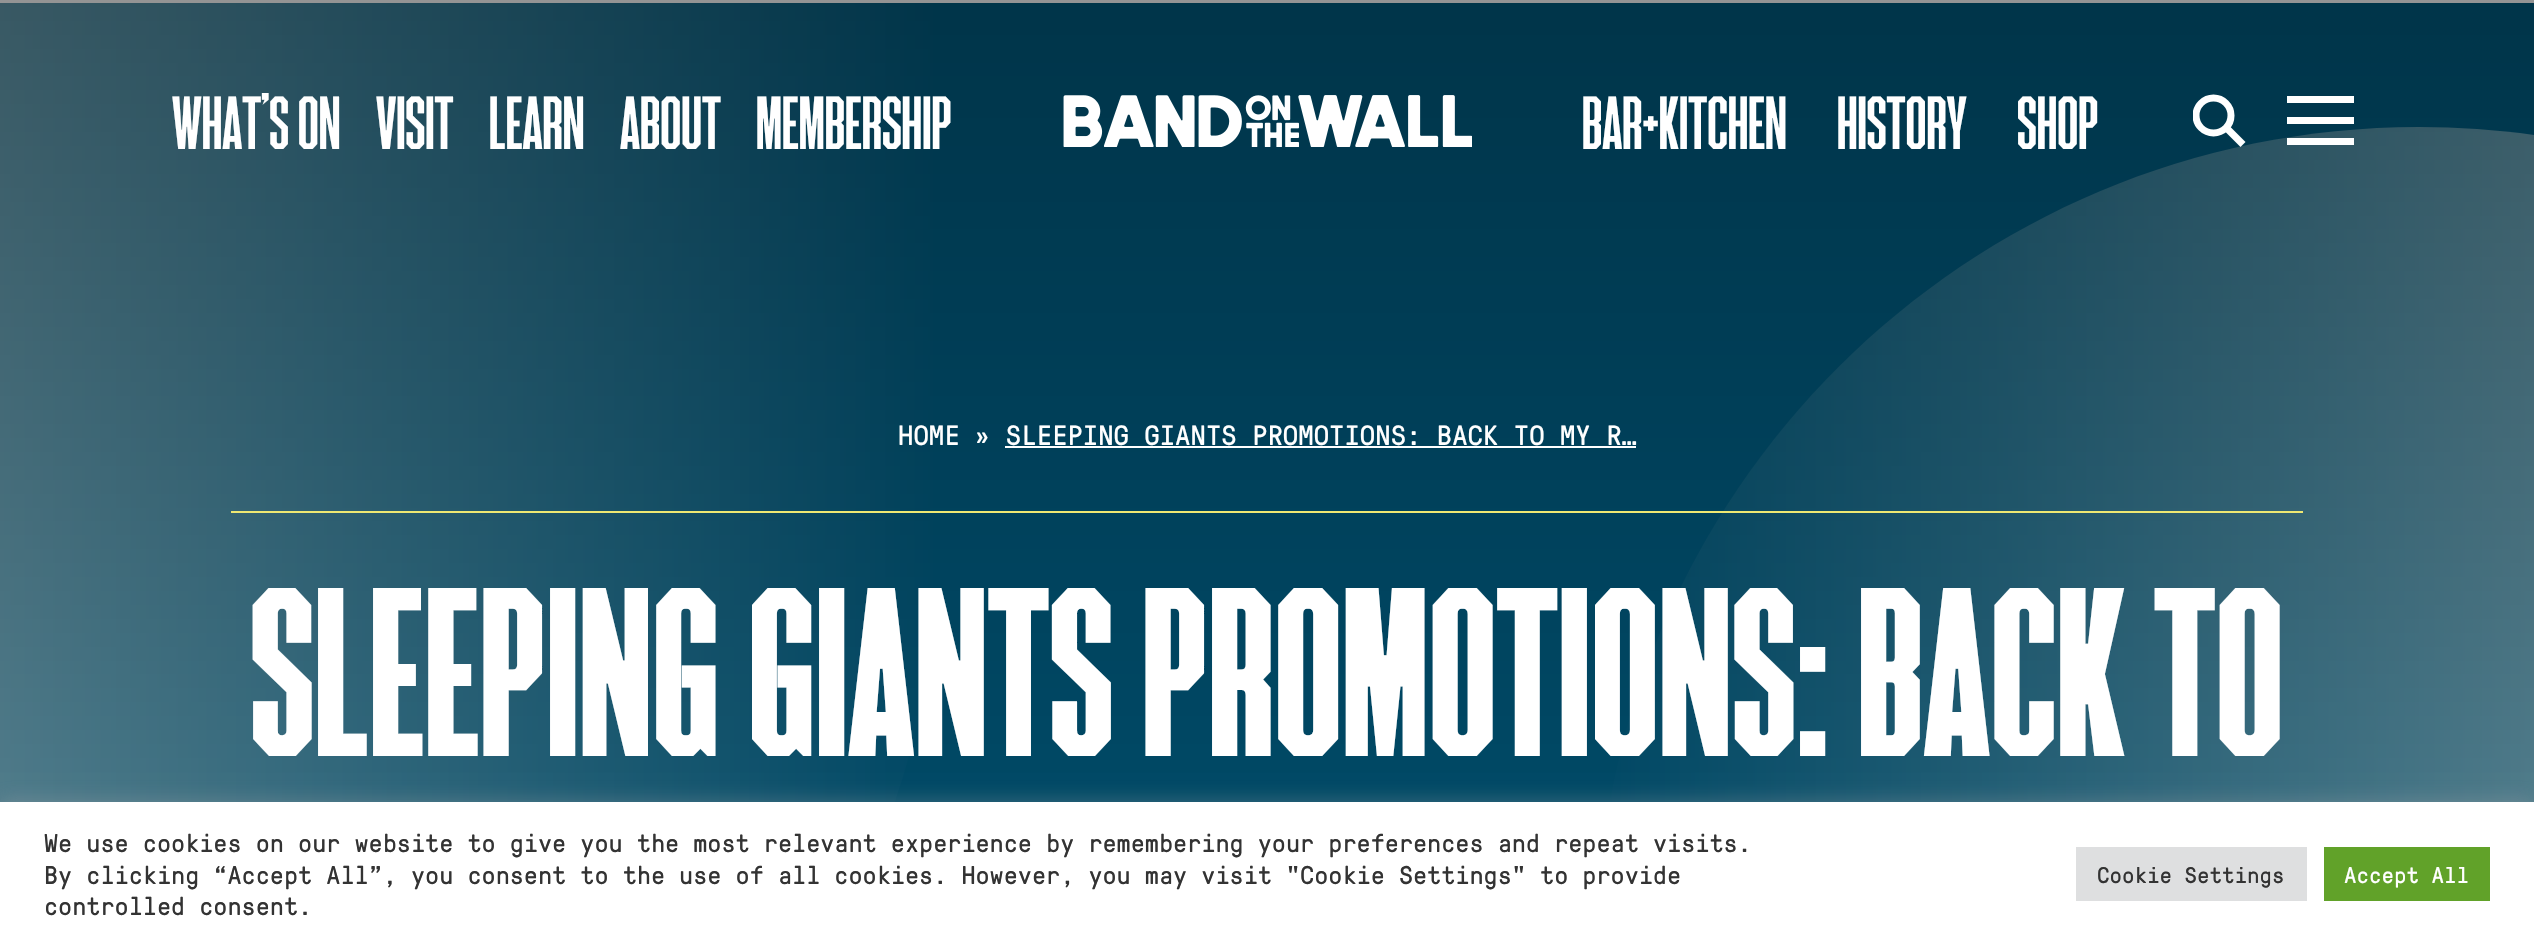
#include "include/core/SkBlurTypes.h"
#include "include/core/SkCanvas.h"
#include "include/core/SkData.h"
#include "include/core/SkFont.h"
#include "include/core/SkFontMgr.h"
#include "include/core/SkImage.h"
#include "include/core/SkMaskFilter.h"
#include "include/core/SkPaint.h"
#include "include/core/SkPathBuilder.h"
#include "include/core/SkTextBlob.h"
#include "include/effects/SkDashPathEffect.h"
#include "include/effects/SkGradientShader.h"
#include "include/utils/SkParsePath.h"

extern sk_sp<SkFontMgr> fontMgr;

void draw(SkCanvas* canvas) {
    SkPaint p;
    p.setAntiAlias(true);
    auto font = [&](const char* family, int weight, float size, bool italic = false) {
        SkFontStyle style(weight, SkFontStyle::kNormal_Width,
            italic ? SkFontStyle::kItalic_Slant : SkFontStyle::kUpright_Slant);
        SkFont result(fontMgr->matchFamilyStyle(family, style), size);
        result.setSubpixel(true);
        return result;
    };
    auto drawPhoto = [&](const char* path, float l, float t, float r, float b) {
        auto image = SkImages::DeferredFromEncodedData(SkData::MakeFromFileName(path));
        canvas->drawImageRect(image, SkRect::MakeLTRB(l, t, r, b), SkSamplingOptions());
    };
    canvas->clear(0xFFFFFFFF);
    p.setColor(0xFF005A7E);
    canvas->drawRect(SkRect::MakeLTRB(894, 3, 2534, 802), p);
    {
        const SkColor colors[] = {0xFF005A7E, 0xFFAAC7CD};
        const float stops[] = {0, 1};
        const SkPoint ends[] = {{938, 682}, {-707, 682}};
        p.setShader(SkGradientShader::MakeLinear(ends, colors, stops, 2, SkTileMode::kClamp));
        p.setAlpha(255);
    }
    canvas->drawPath(SkPathBuilder().moveTo(-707, 3).lineTo(938, 3).lineTo(938, 538).cubicTo(938, 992, 570, 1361, 116, 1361).cubicTo(-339, 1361, -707, 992, -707, 538).close().detach(), p);
    {
        const SkColor colors[] = {0xFF005A7E, 0xFFAAC7CD};
        const float stops[] = {0, 1};
        const SkPoint ends[] = {{1597, 805}, {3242, 805}};
        p.setShader(SkGradientShader::MakeLinear(ends, colors, stops, 2, SkTileMode::kClamp));
        p.setAlpha(255);
    }
    canvas->drawPath(SkPathBuilder().moveTo(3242, 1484).lineTo(1597, 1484).lineTo(1597, 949).cubicTo(1597, 495, 1965, 127, 2419, 127).cubicTo(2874, 127, 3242, 495, 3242, 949).close().detach(), p);
    {
        const SkColor colors[] = {0x6B000000, 0x00000000};
        const float stops[] = {0, 1};
        const SkPoint ends[] = {{1267, 0}, {1267, 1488}};
        p.setShader(SkGradientShader::MakeLinear(ends, colors, stops, 2, SkTileMode::kClamp));
        p.setAlpha(255);
    }
    canvas->drawRect(SkRect::MakeLTRB(0, 0, 2534, 802), p);
    auto font1 = font("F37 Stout", 700, 70);
    p.setShader(nullptr);
    p.setColor(0xFFFFFFFF);
    {
        const struct { const char* s; float x, y; } items[] = {
            {"WHAT’S ON", 172, 149},
            {"VISIT", 376, 149},
            {"LEARN", 489, 149},
            {"ABOUT", 620, 149},
            {"MEMBERSHIP", 756, 149},
        };
        for (auto [s, x, y] : items) {
            canvas->drawString(s, x, y, font1, p);
        }
    }
    drawPhoto("media/1.png", 1063, 95, 1472, 147);
    {
        const struct { const char* s; float x, y; } items[] = {
            {"BAR+KITCHEN", 1582, 149},
            {"HISTORY", 1837, 149},
            {"SHOP", 2017, 149},
        };
        for (auto [s, x, y] : items) {
            canvas->drawString(s, x, y, font1, p);
        }
    }
    p.setStyle(SkPaint::kStroke_Style);
    p.setStrokeWidth(7);
    canvas->drawPath(SkPathBuilder().moveTo(2243, 144.5f).lineTo(2225.5f, 127).detach(), p);
    canvas->save();
    canvas->clipRect(SkRect::MakeLTRB(2193, 79, 2245, 163));
    canvas->drawCircle(2213.5f, 115.5f, 17.5f, p);
    canvas->restore();
    p.setStyle(SkPaint::kFill_Style);
    {
        const struct { float l, t, r, b; SkColor color; } items[] = {
            {2287, 96, 2354, 103, 0xFFFFFFFF},
            {2287, 117, 2354, 124, 0xFFFFFFFF},
            {2287, 138, 2354, 145, 0xFFFFFFFF},
        };
        for (auto [l, t, r, b, color] : items) {
            p.setColor(color);
            canvas->drawRect(SkRect::MakeLTRB(l, t, r, b), p);
        }
    }
    auto font2 = font("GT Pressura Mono", 400, 28);
    canvas->drawString("HOME » SLEEPING GIANTS PROMOTIONS: BACK TO MY R…", 898, 445, font2, p);
    canvas->drawRect(SkRect::MakeLTRB(1005, 446, 1636, 448), p);
    p.setColor(0xFFEFE872);
    canvas->drawRect(SkRect::MakeLTRB(231, 511, 2303, 513), p);
    auto font3 = font("F37 Stout", 900, 224);
    p.setColor(0xFFFFFFFF);
    canvas->drawString("SLEEPING GIANTS PROMOTIONS: BACK TO", 250, 756, font3, p);
    p.setColor(0x4DACABAB);
    p.setMaskFilter(SkMaskFilter::MakeBlur(kNormal_SkBlurStyle, 9));
    canvas->drawRect(SkRect::MakeLTRB(0, 800, 2534, 943), p);
    p.setMaskFilter(nullptr);
    p.setColor(0xFFFFFFFF);
    canvas->drawRect(SkRect::MakeLTRB(0, 802, 2534, 945), p);
    auto font4 = font("GT Pressura Mono", 400, 25.67f);
    p.setColor(0xFF333333);
    {
        const struct { const char* s; float x, y; } items[] = {
            {"We use cookies on our website to give you the most relevant experience by remembering your preferences and repeat visits.", 44, 852},
            {"By clicking “Accept All”, you consent to the use of all cookies. However, you may visit \"Cookie Settings\" to provide", 44, 884},
            {"controlled consent.", 44, 915},
        };
        for (auto [s, x, y] : items) {
            canvas->drawString(s, x, y, font4, p);
        }
    }
    p.setColor(0xFFDEDFE0);
    canvas->drawRect(SkRect::MakeLTRB(2076, 847, 2307, 901), p);
    auto font5 = font("GT Pressura Mono", 400, 22.75f);
    p.setColor(0xFF333333);
    canvas->drawString("Cookie Settings", 2097, 883, font5, p);
    p.setColor(0xFF61A229);
    canvas->drawRect(SkRect::MakeLTRB(2324, 847, 2490, 901), p);
    p.setColor(0xFFFFFFFF);
    canvas->drawString("Accept All", 2344, 883, font5, p);
}
